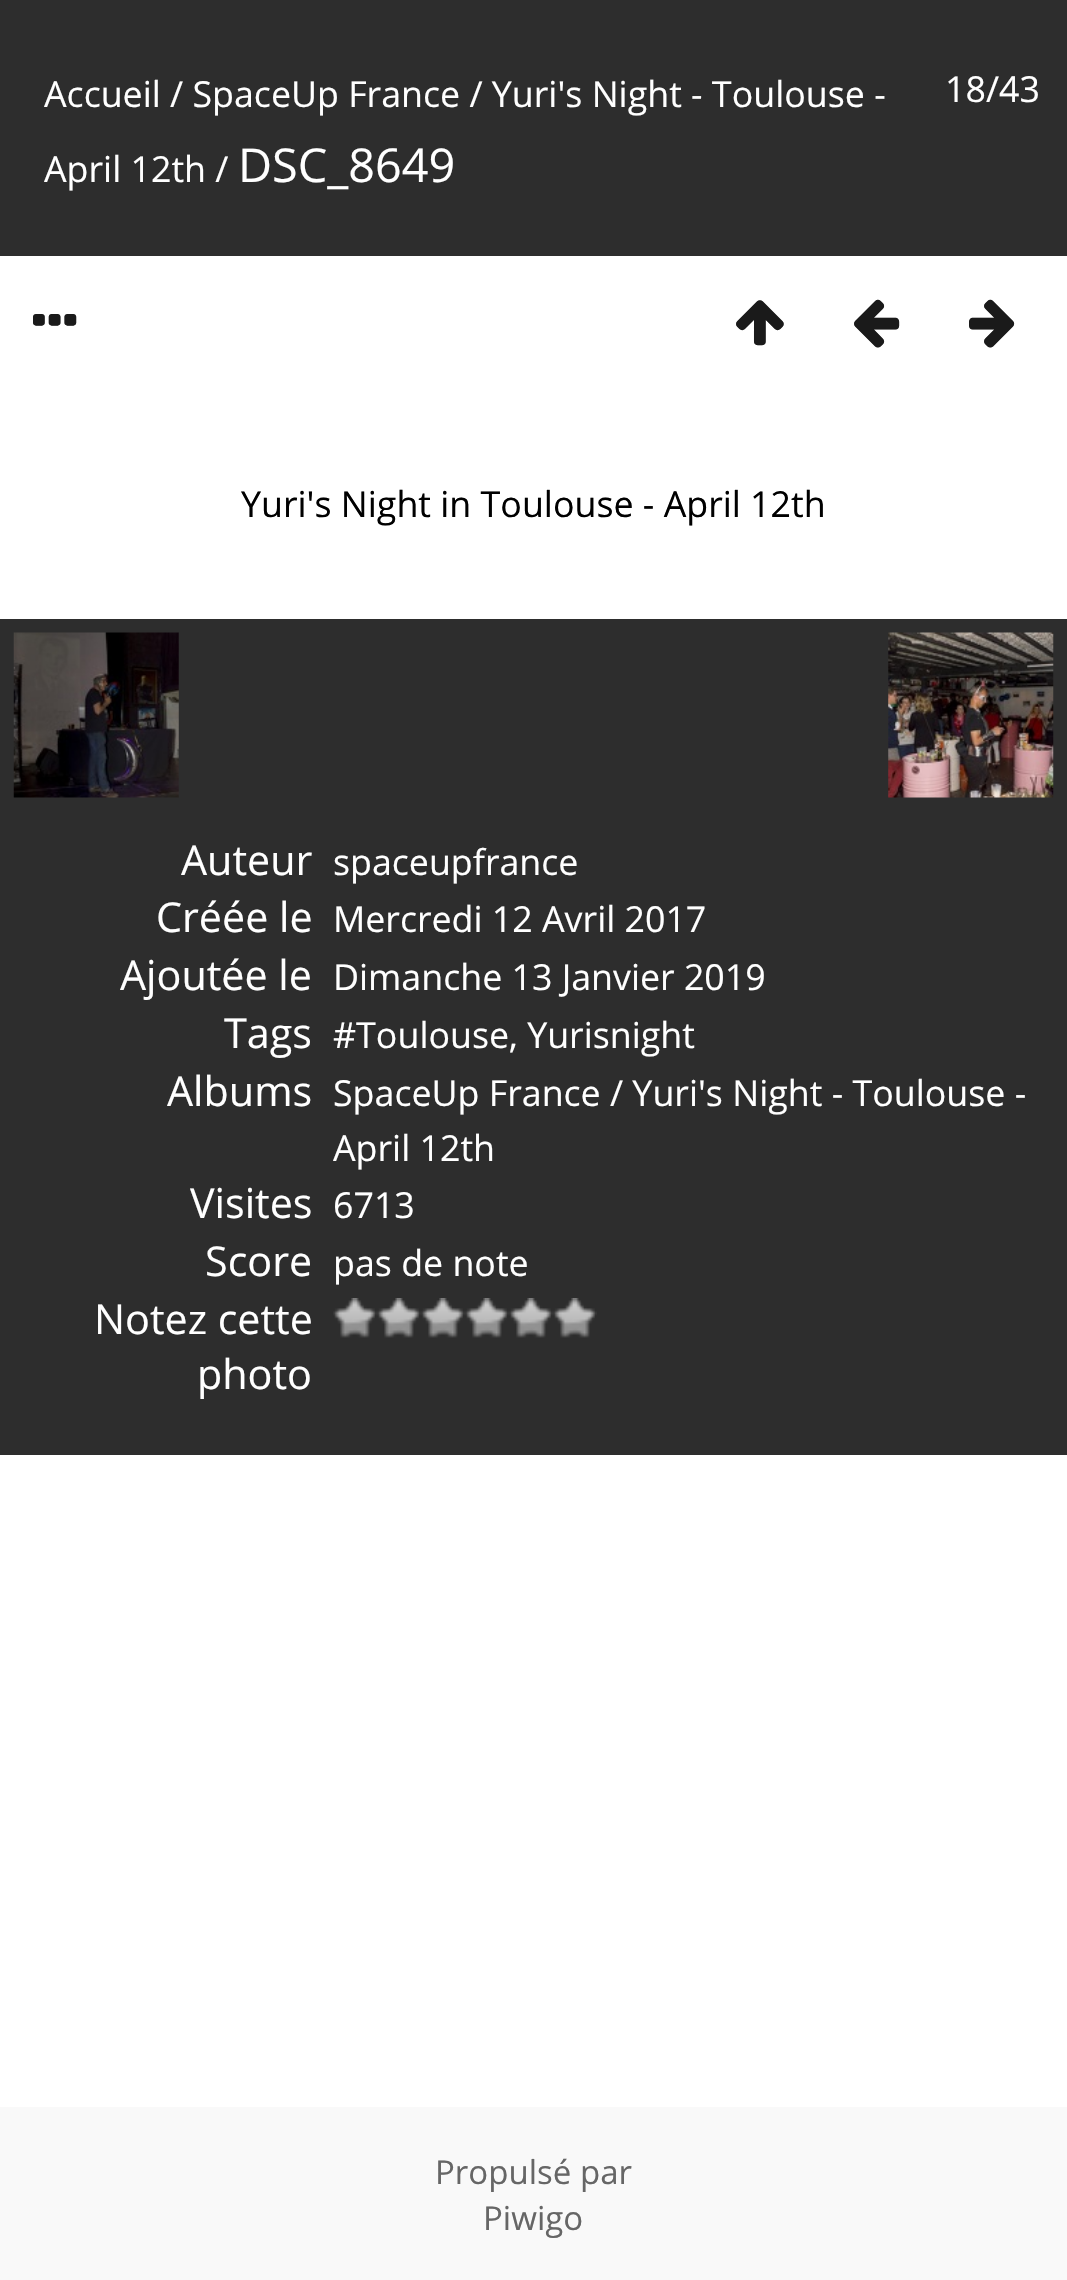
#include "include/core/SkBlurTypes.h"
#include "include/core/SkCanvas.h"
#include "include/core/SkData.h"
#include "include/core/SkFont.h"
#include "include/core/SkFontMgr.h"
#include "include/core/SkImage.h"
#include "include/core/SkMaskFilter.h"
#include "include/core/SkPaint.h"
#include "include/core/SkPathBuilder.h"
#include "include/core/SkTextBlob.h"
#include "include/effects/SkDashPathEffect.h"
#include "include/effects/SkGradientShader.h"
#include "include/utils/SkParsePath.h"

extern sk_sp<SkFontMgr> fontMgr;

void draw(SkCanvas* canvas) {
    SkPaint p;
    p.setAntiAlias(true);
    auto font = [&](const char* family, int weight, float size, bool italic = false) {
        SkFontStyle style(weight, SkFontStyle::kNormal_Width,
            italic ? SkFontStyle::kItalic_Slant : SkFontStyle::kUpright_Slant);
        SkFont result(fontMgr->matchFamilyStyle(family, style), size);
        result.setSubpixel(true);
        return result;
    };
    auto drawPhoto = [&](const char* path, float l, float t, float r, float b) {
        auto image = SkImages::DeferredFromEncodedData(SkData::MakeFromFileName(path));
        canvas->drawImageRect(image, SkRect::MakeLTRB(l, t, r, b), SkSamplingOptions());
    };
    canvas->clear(0xFFFFFFFF);
    p.setColor(0xFF2D2D2D);
    canvas->drawRect(SkRect::MakeLTRB(0, 0, 1067, 256), p);
    auto font1 = font("Open Sans", 400, 35.75f);
    p.setColor(0xFFFFFFFF);
    canvas->drawString("Accueil / SpaceUp France / Yuri's Night - Toulouse -", 44, 107, font1, p);
    canvas->drawString("April 12th /", 44, 182, font1, p);
    auto font2 = font("Open Sans", 400, 46.75f);
    canvas->drawString("DSC_8649", 238, 182, font2, p);
    canvas->drawString("18/43", 945, 102, font1, p);
    auto font3 = font("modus", 400, 55);
    p.setColor(0xFF1A1A1A);
    {
        const struct { const char* s; float x, y; } items[] = {
            {"…", 33, 341},
            {"↑", 736, 341},
            {"←", 854, 341},
            {"→", 969, 341},
        };
        for (auto [s, x, y] : items) {
            canvas->drawString(s, x, y, font3, p);
        }
    }
    p.setColor(0xFF000000);
    canvas->drawString("Yuri's Night in Toulouse - April 12th", 241, 517, font1, p);
    p.setColor(0xFF2D2D2D);
    canvas->drawRect(SkRect::MakeLTRB(0, 619, 1067, 1455), p);
    drawPhoto("media/1.png", 13, 632, 179, 798);
    drawPhoto("media/2.png", 888, 632, 1054, 798);
    auto font4 = font("Open Sans", 400, 41.25f);
    p.setColor(0xFFFFFFFF);
    canvas->drawString("Auteur", 181, 875, font4, p);
    canvas->drawString("spaceupfrance", 333, 875, font1, p);
    canvas->drawString("Créée le", 156, 932, font4, p);
    canvas->drawString("Mercredi 12 Avril 2017", 333, 932, font1, p);
    canvas->drawString("Ajoutée le", 120, 990, font4, p);
    canvas->drawString("Dimanche 13 Janvier 2019", 333, 990, font1, p);
    canvas->drawString("Tags", 224, 1048, font4, p);
    canvas->drawString("#Toulouse, Yurisnight", 333, 1048, font1, p);
    canvas->drawString("Albums", 167, 1106, font4, p);
    canvas->drawString("SpaceUp France / Yuri's Night - Toulouse -", 333, 1106, font1, p);
    canvas->drawString("April 12th", 333, 1161, font1, p);
    canvas->drawString("Visites", 190, 1218, font4, p);
    canvas->drawString("6713", 333, 1218, font1, p);
    canvas->drawString("Score", 205, 1276, font4, p);
    canvas->drawString("pas de note", 333, 1276, font1, p);
    canvas->drawString("Notez cette", 94, 1334, font4, p);
    canvas->drawString("photo", 197, 1389, font4, p);
    drawPhoto("media/3.png", 333, 1298, 377, 1338);
    drawPhoto("media/3.png", 377, 1298, 421, 1338);
    drawPhoto("media/3.png", 421, 1298, 465, 1338);
    drawPhoto("media/3.png", 465, 1298, 509, 1338);
    drawPhoto("media/3.png", 509, 1298, 553, 1338);
    drawPhoto("media/3.png", 553, 1298, 597, 1338);
    p.setColor(0xFFF9F9F9);
    canvas->drawRect(SkRect::MakeLTRB(0, 2107, 1067, 2280), p);
    auto font5 = font("Open Sans", 400, 33);
    p.setColor(0xFF666666);
    canvas->drawString("Propulsé par", 435, 2184, font5, p);
    canvas->drawString("Piwigo", 483, 2230, font5, p);
}
